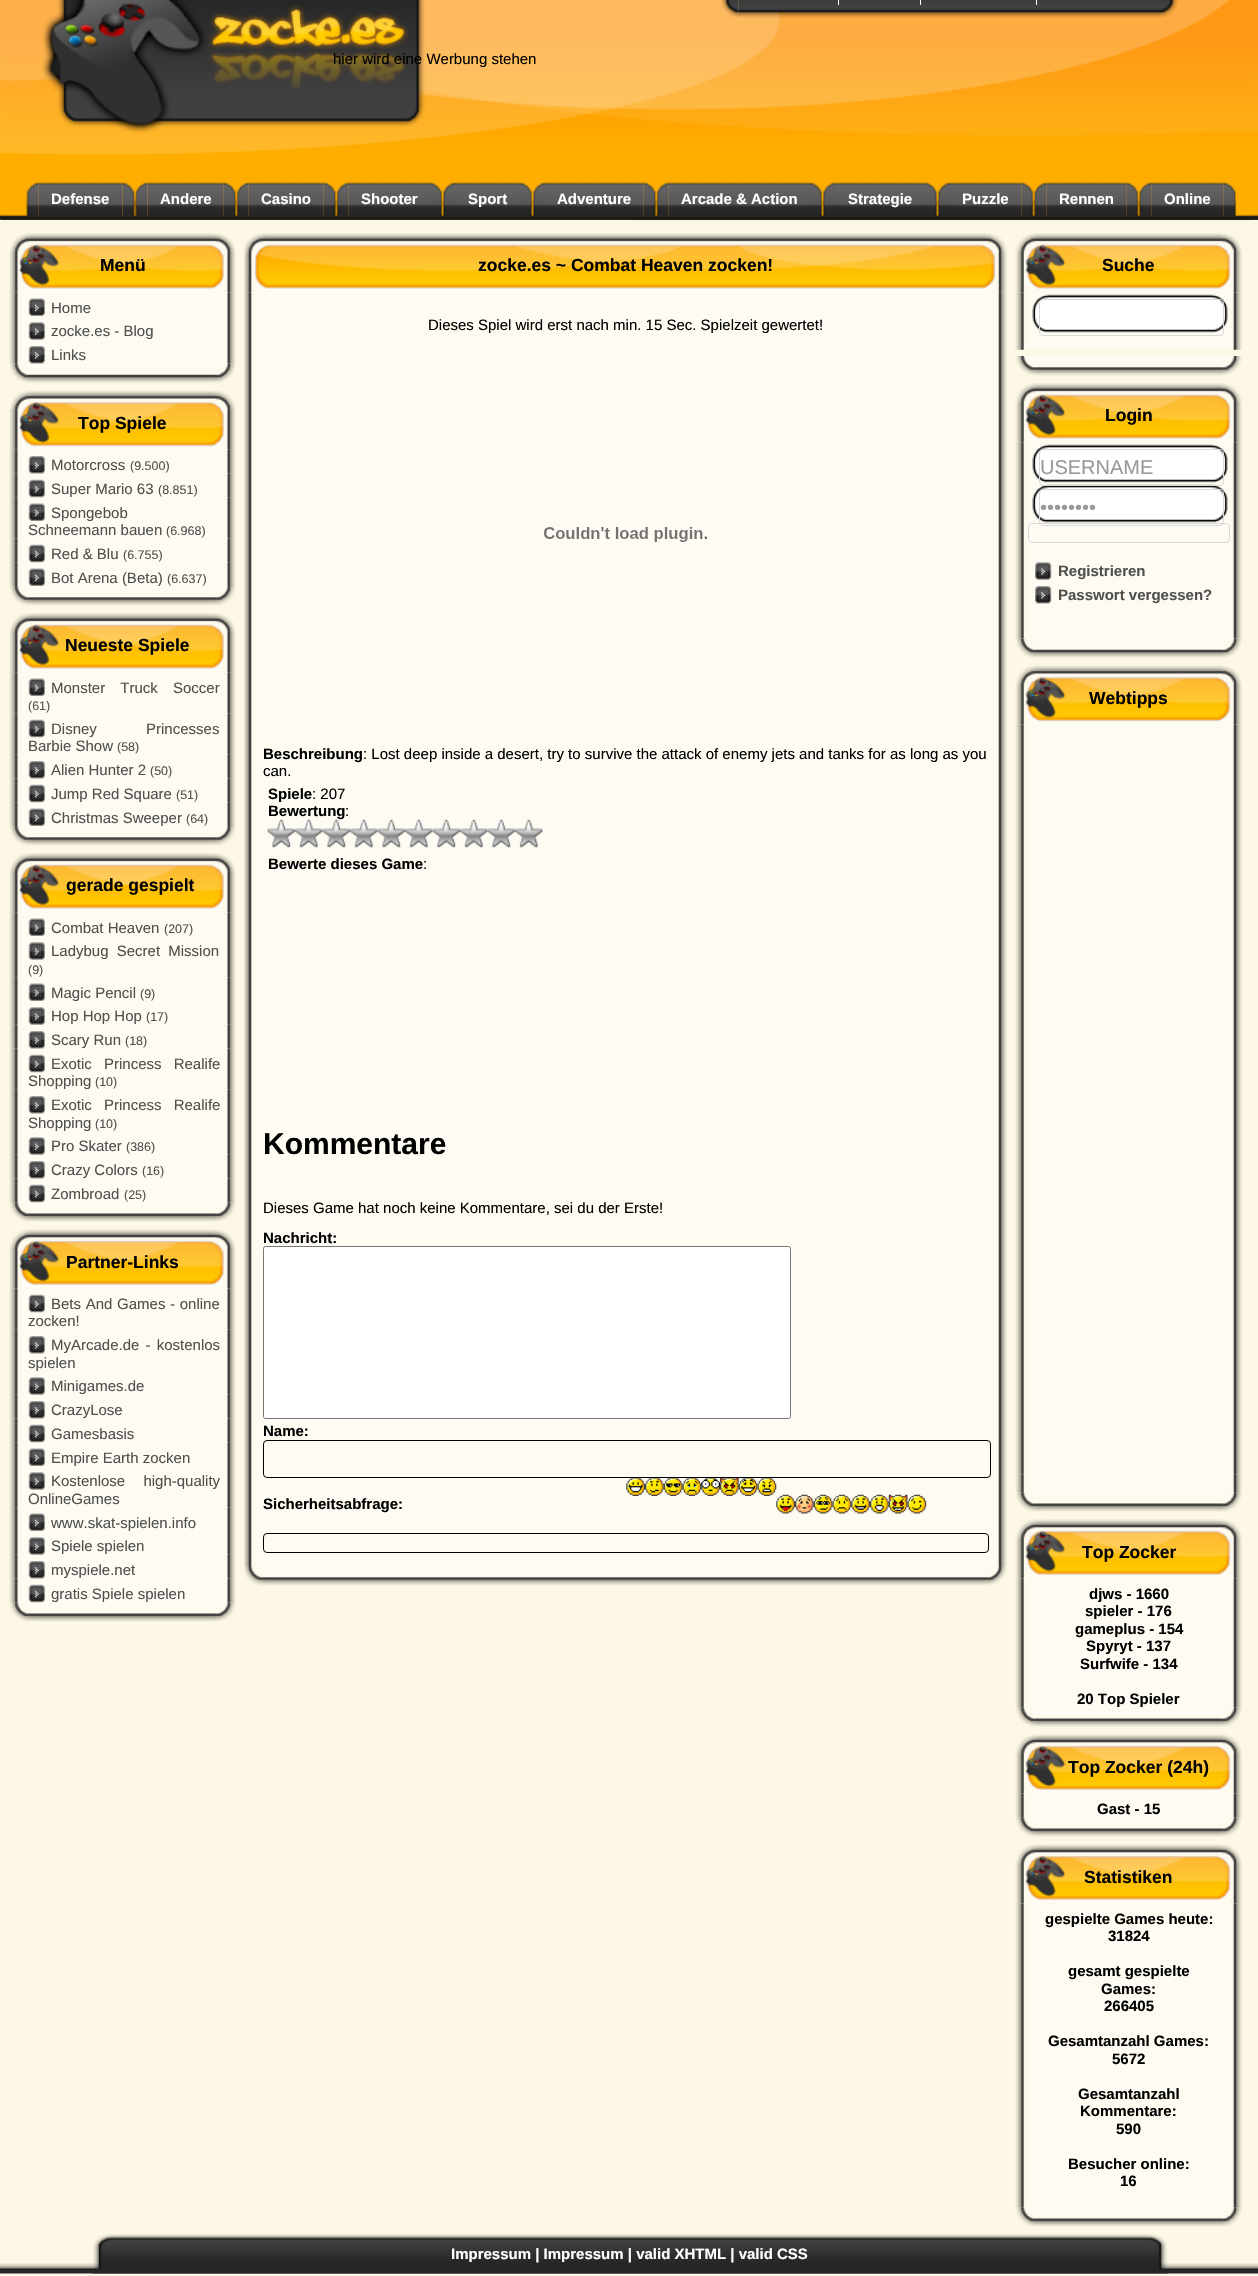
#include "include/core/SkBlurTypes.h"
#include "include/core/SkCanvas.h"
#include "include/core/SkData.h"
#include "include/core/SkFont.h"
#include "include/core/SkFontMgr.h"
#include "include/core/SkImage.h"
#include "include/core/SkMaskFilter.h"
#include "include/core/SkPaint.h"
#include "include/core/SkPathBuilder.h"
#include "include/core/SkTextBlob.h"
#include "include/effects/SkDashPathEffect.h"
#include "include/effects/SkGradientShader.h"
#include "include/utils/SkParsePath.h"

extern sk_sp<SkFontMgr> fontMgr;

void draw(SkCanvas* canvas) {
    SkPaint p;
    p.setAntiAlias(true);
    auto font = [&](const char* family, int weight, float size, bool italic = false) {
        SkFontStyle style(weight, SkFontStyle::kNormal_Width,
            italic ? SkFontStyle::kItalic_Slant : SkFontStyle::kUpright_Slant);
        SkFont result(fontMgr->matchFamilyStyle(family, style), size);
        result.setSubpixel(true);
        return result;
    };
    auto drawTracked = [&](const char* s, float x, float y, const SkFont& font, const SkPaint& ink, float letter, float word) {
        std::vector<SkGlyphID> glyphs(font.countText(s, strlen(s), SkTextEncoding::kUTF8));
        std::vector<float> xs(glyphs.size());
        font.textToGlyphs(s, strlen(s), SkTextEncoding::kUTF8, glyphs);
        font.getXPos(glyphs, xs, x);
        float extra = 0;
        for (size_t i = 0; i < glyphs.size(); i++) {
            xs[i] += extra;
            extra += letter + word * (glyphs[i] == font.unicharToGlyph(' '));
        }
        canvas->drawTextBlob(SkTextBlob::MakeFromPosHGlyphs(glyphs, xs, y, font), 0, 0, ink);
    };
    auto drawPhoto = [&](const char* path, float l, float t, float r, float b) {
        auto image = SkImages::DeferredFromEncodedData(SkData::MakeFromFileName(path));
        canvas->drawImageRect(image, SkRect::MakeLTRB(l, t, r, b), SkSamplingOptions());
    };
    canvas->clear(0xFFFDF8E5);
    drawPhoto("media/1.png", 0, 0, 1258, 220);
    drawPhoto("media/2.png", 630, 0, 1258, 220);
    drawPhoto("media/3.png", 1, 0, 1251, 220);
    drawPhoto("media/4.png", 721, 0, 739, 18);
    drawPhoto("media/5.png", 738, 0, 1160, 18);
    {
        const struct { float l, t, r, b; SkColor color; } items[] = {
            {838, 0, 839, 5, 0xFFFFFFFF},
            {920, 0, 921, 5, 0xFFFFFFFF},
            {1036, 0, 1037, 5, 0xFFFFFFFF},
        };
        for (auto [l, t, r, b, color] : items) {
            p.setColor(color);
            canvas->drawRect(SkRect::MakeLTRB(l, t, r, b), p);
        }
    }
    drawPhoto("media/6.png", 1160, 0, 1178, 18);
    auto font1 = font("Liberation Sans", 400, 15);
    p.setColor(0xFF000000);
    canvas->drawString("hier wird eine Werbung stehen", 333, 64, font1, p);
    drawPhoto("media/7.png", 26, 182, 39, 216);
    drawPhoto("media/8.png", 38, 182, 123, 216);
    auto font2 = font("Liberation Sans", 700, 15);
    p.setColor(0xFFFFFFFF);
    canvas->drawString("Defense", 51, 204, font2, p);
    drawPhoto("media/9.png", 122, 182, 135, 216);
    drawPhoto("media/10.png", 135, 182, 148, 216);
    drawPhoto("media/11.png", 147, 182, 224, 216);
    canvas->drawString("Andere", 160, 204, font2, p);
    drawPhoto("media/12.png", 223, 182, 237, 216);
    drawPhoto("media/13.png", 236, 182, 249, 216);
    drawPhoto("media/14.png", 248, 182, 324, 216);
    canvas->drawString("Casino", 261, 204, font2, p);
    drawPhoto("media/15.png", 323, 182, 337, 216);
    drawPhoto("media/13.png", 336, 182, 349, 216);
    drawPhoto("media/16.png", 348, 182, 430, 216);
    canvas->drawString("Shooter", 361, 204, font2, p);
    drawPhoto("media/17.png", 430, 182, 443, 216);
    drawPhoto("media/18.png", 442, 182, 455, 216);
    drawPhoto("media/19.png", 455, 182, 520, 216);
    canvas->drawString("Sport", 468, 204, font2, p);
    drawPhoto("media/17.png", 520, 182, 533, 216);
    drawPhoto("media/20.png", 532, 182, 545, 216);
    drawPhoto("media/21.png", 545, 182, 644, 216);
    canvas->drawString("Adventure", 557, 204, font2, p);
    drawPhoto("media/12.png", 643, 182, 657, 216);
    drawPhoto("media/13.png", 656, 182, 669, 216);
    drawPhoto("media/22.png", 668, 182, 810, 216);
    canvas->drawString("Arcade & Action", 681, 204, font2, p);
    drawPhoto("media/17.png", 810, 182, 823, 216);
    drawPhoto("media/20.png", 822, 182, 835, 216);
    drawPhoto("media/23.png", 835, 182, 925, 216);
    canvas->drawString("Strategie", 848, 204, font2, p);
    drawPhoto("media/17.png", 925, 182, 938, 216);
    drawPhoto("media/20.png", 937, 182, 950, 216);
    drawPhoto("media/24.png", 950, 182, 1022, 216);
    canvas->drawString("Puzzle", 962, 204, font2, p);
    drawPhoto("media/25.png", 1021, 182, 1034, 216);
    drawPhoto("media/26.png", 1033, 182, 1047, 216);
    drawPhoto("media/27.png", 1046, 182, 1127, 216);
    canvas->drawString("Rennen", 1059, 204, font2, p);
    drawPhoto("media/25.png", 1126, 182, 1139, 216);
    drawPhoto("media/28.png", 1138, 182, 1152, 216);
    drawPhoto("media/29.png", 1151, 182, 1224, 216);
    canvas->drawString("Online", 1164, 204, font2, p);
    drawPhoto("media/15.png", 1223, 182, 1237, 216);
    drawPhoto("media/30.png", 9, 233, 236, 293);
    auto font3 = font("Liberation Sans", 700, 17.5f);
    p.setColor(0xFF000000);
    canvas->drawString("Menü", 100, 271, font3, p);
    drawPhoto("media/31.png", 9, 292, 236, 364);
    drawPhoto("media/32.png", 28, 298, 45, 316);
    p.setColor(0xFF50504F);
    canvas->drawString("Home", 51, 313, font1, p);
    drawPhoto("media/33.png", 28, 322, 45, 340);
    canvas->drawString("zocke.es - Blog", 51, 336, font1, p);
    drawPhoto("media/35.png", 10, 363, 236, 383);
    drawPhoto("media/34.png", 28, 346, 45, 364);
    canvas->drawString("Links", 51, 360, font1, p);
    drawPhoto("media/36.png", 9, 390, 236, 450);
    p.setColor(0xFF000000);
    canvas->drawString("Top Spiele", 78, 429, font3, p);
    drawPhoto("media/37.png", 9, 449, 236, 474);
    drawPhoto("media/38.png", 9, 473, 236, 498);
    drawPhoto("media/34.png", 28, 456, 45, 474);
    p.setColor(0xFF50504F);
    canvas->drawString("Motorcross", 51, 470, font1, p);
    auto font4 = font("Liberation Sans", 400, 12.5f);
    canvas->drawString("(9.500)", 130, 470, font4, p);
    drawPhoto("media/40.png", 9, 497, 236, 539);
    drawPhoto("media/39.png", 28, 479, 45, 498);
    canvas->drawString("Super Mario 63", 51, 494, font1, p);
    canvas->drawString("(8.851)", 158, 494, font4, p);
    drawPhoto("media/32.png", 28, 503, 45, 521);
    canvas->drawString("Spongebob", 51, 518, font1, p);
    canvas->drawString("Schneemann bauen", 28, 535, font1, p);
    canvas->drawString("(6.968)", 166, 535, font4, p);
    drawPhoto("media/41.png", 9, 538, 236, 563);
    drawPhoto("media/42.png", 9, 562, 236, 586);
    drawPhoto("media/39.png", 28, 544, 45, 563);
    canvas->drawString("Red & Blu", 51, 559, font1, p);
    canvas->drawString("(6.755)", 123, 559, font4, p);
    drawPhoto("media/32.png", 28, 568, 45, 586);
    drawPhoto("media/43.png", 10, 586, 236, 606);
    canvas->drawString("Bot Arena (Beta)", 51, 583, font1, p);
    canvas->drawString("(6.637)", 167, 583, font4, p);
    drawPhoto("media/44.png", 9, 613, 236, 673);
    p.setColor(0xFF000000);
    canvas->drawString("Neueste Spiele", 65, 651, font3, p);
    drawPhoto("media/45.png", 9, 672, 236, 714);
    drawPhoto("media/32.png", 28, 678, 45, 696);
    p.setColor(0xFF50504F);
    drawTracked("Monster Truck Soccer", 51, 693, font1, p, 0, 11);
    canvas->drawString("(61)", 28, 710, font4, p);
    drawPhoto("media/46.png", 9, 713, 236, 755);
    drawPhoto("media/47.png", 28, 719, 45, 738);
    drawTracked("Disney Princesses", 51, 734, font1, p, 0, 45);
    canvas->drawString("Barbie Show", 28, 751, font1, p);
    canvas->drawString("(58)", 117, 751, font4, p);
    drawPhoto("media/48.png", 9, 754, 236, 779);
    drawPhoto("media/49.png", 9, 778, 236, 803);
    drawPhoto("media/34.png", 28, 761, 45, 779);
    canvas->drawString("Alien Hunter 2", 51, 775, font1, p);
    canvas->drawString("(50)", 150, 775, font4, p);
    drawPhoto("media/50.png", 9, 802, 236, 826);
    drawPhoto("media/39.png", 28, 784, 45, 803);
    canvas->drawString("Jump Red Square", 51, 799, font1, p);
    canvas->drawString("(51)", 176, 799, font4, p);
    drawPhoto("media/32.png", 28, 808, 45, 826);
    drawPhoto("media/43.png", 10, 826, 236, 846);
    canvas->drawString("Christmas Sweeper", 51, 823, font1, p);
    canvas->drawString("(64)", 186, 823, font4, p);
    drawPhoto("media/44.png", 9, 853, 236, 913);
    p.setColor(0xFF000000);
    canvas->drawString("gerade gespielt", 66, 891, font3, p);
    drawPhoto("media/51.png", 9, 912, 236, 936);
    drawPhoto("media/32.png", 28, 918, 45, 936);
    p.setColor(0xFF50504F);
    canvas->drawString("Combat Heaven", 51, 933, font1, p);
    canvas->drawString("(207)", 164, 933, font4, p);
    drawPhoto("media/52.png", 9, 936, 236, 978);
    drawPhoto("media/33.png", 28, 942, 45, 960);
    drawTracked("Ladybug Secret Mission", 51, 956, font1, p, 0, 4);
    canvas->drawString("(9)", 28, 974, font4, p);
    drawPhoto("media/53.png", 9, 977, 236, 1001);
    drawPhoto("media/32.png", 28, 983, 45, 1001);
    drawPhoto("media/54.png", 9, 1001, 236, 1025);
    canvas->drawString("Magic Pencil", 51, 998, font1, p);
    canvas->drawString("(9)", 140, 998, font4, p);
    drawPhoto("media/56.png", 9, 1024, 236, 1049);
    drawPhoto("media/55.png", 28, 1007, 45, 1025);
    canvas->drawString("Hop Hop Hop", 51, 1021, font1, p);
    canvas->drawString("(17)", 146, 1021, font4, p);
    drawPhoto("media/57.png", 9, 1048, 236, 1090);
    drawPhoto("media/34.png", 28, 1031, 45, 1049);
    canvas->drawString("Scary Run", 51, 1045, font1, p);
    canvas->drawString("(18)", 125, 1045, font4, p);
    drawPhoto("media/47.png", 28, 1054, 45, 1073);
    drawTracked("Exotic Princess Realife", 51, 1069, font1, p, 0, 8);
    drawPhoto("media/58.png", 9, 1089, 236, 1131);
    canvas->drawString("Shopping", 28, 1086, font1, p);
    canvas->drawString("(10)", 95, 1086, font4, p);
    drawPhoto("media/59.png", 28, 1096, 45, 1114);
    drawTracked("Exotic Princess Realife", 51, 1110, font1, p, 0, 8);
    drawPhoto("media/60.png", 9, 1131, 236, 1155);
    canvas->drawString("Shopping", 28, 1128, font1, p);
    canvas->drawString("(10)", 95, 1128, font4, p);
    drawPhoto("media/61.png", 9, 1154, 236, 1179);
    drawPhoto("media/55.png", 28, 1137, 45, 1155);
    canvas->drawString("Pro Skater", 51, 1151, font1, p);
    canvas->drawString("(386)", 126, 1151, font4, p);
    drawPhoto("media/62.png", 9, 1178, 236, 1203);
    drawPhoto("media/34.png", 28, 1161, 45, 1179);
    canvas->drawString("Crazy Colors", 51, 1175, font1, p);
    canvas->drawString("(16)", 142, 1175, font4, p);
    drawPhoto("media/64.png", 10, 1202, 236, 1222);
    drawPhoto("media/63.png", 28, 1184, 45, 1203);
    canvas->drawString("Zombroad", 51, 1199, font1, p);
    canvas->drawString("(25)", 124, 1199, font4, p);
    drawPhoto("media/65.png", 9, 1229, 236, 1289);
    p.setColor(0xFF000000);
    canvas->drawString("Partner-Links", 66, 1268, font3, p);
    drawPhoto("media/66.png", 9, 1288, 236, 1330);
    drawPhoto("media/47.png", 28, 1294, 45, 1313);
    p.setColor(0xFF50504F);
    drawTracked("Bets And Games - online", 51, 1309, font1, p, 0, 0.5f);
    canvas->drawString("zocken!", 28, 1326, font1, p);
    drawPhoto("media/67.png", 9, 1329, 236, 1371);
    drawPhoto("media/59.png", 28, 1336, 45, 1354);
    drawTracked("MyArcade.de - kostenlos", 51, 1350, font1, p, 0, 2);
    drawPhoto("media/68.png", 9, 1371, 236, 1395);
    canvas->drawString("spielen", 28, 1368, font1, p);
    drawPhoto("media/69.png", 9, 1394, 236, 1419);
    drawPhoto("media/55.png", 28, 1377, 45, 1395);
    canvas->drawString("Minigames.de", 51, 1391, font1, p);
    drawPhoto("media/70.png", 9, 1418, 236, 1443);
    drawPhoto("media/34.png", 28, 1401, 45, 1419);
    canvas->drawString("CrazyLose", 51, 1415, font1, p);
    drawPhoto("media/71.png", 9, 1442, 236, 1466);
    drawPhoto("media/39.png", 28, 1424, 45, 1443);
    canvas->drawString("Gamesbasis", 51, 1439, font1, p);
    drawPhoto("media/32.png", 28, 1448, 45, 1466);
    drawPhoto("media/72.png", 9, 1466, 236, 1508);
    canvas->drawString("Empire Earth zocken", 51, 1463, font1, p);
    drawPhoto("media/33.png", 28, 1472, 45, 1490);
    drawTracked("Kostenlose high-quality", 51, 1486, font1, p, 0, 14);
    canvas->drawString("OnlineGames", 28, 1504, font1, p);
    drawPhoto("media/73.png", 9, 1507, 236, 1531);
    drawPhoto("media/74.png", 28, 1513, 45, 1531);
    drawPhoto("media/75.png", 9, 1531, 236, 1555);
    canvas->drawString("www.skat-spielen.info", 51, 1528, font1, p);
    drawPhoto("media/76.png", 9, 1554, 236, 1579);
    drawPhoto("media/55.png", 28, 1537, 45, 1555);
    canvas->drawString("Spiele spielen", 51, 1551, font1, p);
    drawPhoto("media/77.png", 9, 1578, 236, 1603);
    drawPhoto("media/34.png", 28, 1561, 45, 1579);
    canvas->drawString("myspiele.net", 51, 1575, font1, p);
    drawPhoto("media/64.png", 10, 1602, 236, 1622);
    drawPhoto("media/63.png", 28, 1584, 45, 1603);
    canvas->drawString("gratis Spiele spielen", 51, 1599, font1, p);
    drawPhoto("media/78.png", 244, 233, 1007, 293);
    p.setColor(0xFF000000);
    canvas->drawString("zocke.es ~ Combat Heaven zocken!", 478, 271, font3, p);
    drawPhoto("media/79.png", 244, 292, 1007, 1566);
    canvas->drawString("Dieses Spiel wird erst nach min. 15 Sec. Spielzeit gewertet!", 428, 330, font1, p);
    drawPhoto("media/80.png", 544, 527, 707, 542);
    canvas->drawString("Beschreibung", 263, 759, font2, p);
    canvas->drawString(": Lost deep inside a desert, try to survive the attack of enemy jets and tanks for as long as you", 363, 759, font1, p);
    canvas->drawString("can.", 263, 776, font1, p);
    canvas->drawString("Spiele", 268, 799, font2, p);
    canvas->drawString(": 207", 312, 799, font1, p);
    drawPhoto("media/81.png", 267, 819, 295, 848);
    drawPhoto("media/82.png", 295, 819, 323, 848);
    drawPhoto("media/83.png", 322, 819, 350, 848);
    canvas->drawString("Bewertung", 268, 816, font2, p);
    canvas->drawString(":", 345, 816, font1, p);
    drawPhoto("media/82.png", 350, 819, 378, 848);
    drawPhoto("media/84.png", 377, 819, 405, 848);
    drawPhoto("media/82.png", 405, 819, 433, 848);
    drawPhoto("media/83.png", 432, 819, 460, 848);
    drawPhoto("media/85.png", 460, 819, 488, 848);
    drawPhoto("media/86.png", 487, 819, 515, 848);
    drawPhoto("media/82.png", 515, 819, 543, 848);
    canvas->drawString("Bewerte dieses Game", 268, 869, font2, p);
    canvas->drawString(":", 423, 869, font1, p);
    auto font5 = font("Liberation Sans", 700, 30);
    canvas->drawString("Kommentare", 263, 1154, font5, p);
    canvas->drawString("Dieses Game hat noch keine Kommentare, sei du der Erste!", 263, 1213, font1, p);
    canvas->drawString("Nachricht:", 263, 1243, font2, p);
    p.setColor(0xFFFFFFFF);
    canvas->drawRoundRect(SkRect::MakeLTRB(263.5f, 1246.5f, 790.5f, 1418.5f), 2, 2, p);
    p.setStyle(SkPaint::kStroke_Style);
    p.setStrokeWidth(1);
    p.setColor(0xFF767676);
    canvas->drawRoundRect(SkRect::MakeLTRB(263.5f, 1246.5f, 790.5f, 1418.5f), 2, 2, p);
    p.setStyle(SkPaint::kFill_Style);
    p.setColor(0xFF000000);
    canvas->drawString("Name:", 263, 1436, font2, p);
    p.setStyle(SkPaint::kStroke_Style);
    canvas->drawRoundRect(SkRect::MakeLTRB(263.5f, 1440.5f, 990.5f, 1477.5f), 3.5f, 3.5f, p);
    p.setStyle(SkPaint::kFill_Style);
    canvas->drawString("Sicherheitsabfrage:", 263, 1509, font2, p);
    p.setStyle(SkPaint::kStroke_Style);
    canvas->drawRoundRect(SkRect::MakeLTRB(263.5f, 1533.5f, 988.5f, 1552.5f), 3.5f, 3.5f, p);
    drawPhoto("media/87.png", 626, 1478, 645, 1496);
    drawPhoto("media/88.png", 645, 1478, 664, 1496);
    drawPhoto("media/89.png", 663, 1478, 683, 1496);
    drawPhoto("media/90.png", 682, 1478, 702, 1496);
    drawPhoto("media/91.png", 701, 1478, 720, 1496);
    drawPhoto("media/92.png", 720, 1478, 739, 1496);
    drawPhoto("media/93.png", 738, 1478, 758, 1496);
    drawPhoto("media/94.png", 757, 1478, 777, 1496);
    drawPhoto("media/95.png", 776, 1494, 795, 1514);
    drawPhoto("media/96.png", 795, 1494, 814, 1514);
    drawPhoto("media/97.png", 813, 1494, 833, 1514);
    drawPhoto("media/98.png", 832, 1494, 852, 1514);
    drawPhoto("media/99.png", 851, 1494, 870, 1514);
    drawPhoto("media/100.png", 870, 1494, 889, 1514);
    drawPhoto("media/101.png", 888, 1494, 908, 1514);
    drawPhoto("media/102.png", 907, 1494, 927, 1514);
    drawPhoto("media/103.png", 244, 1566, 1007, 1586);
    drawPhoto("media/104.png", 1015, 233, 1242, 293);
    p.setStyle(SkPaint::kFill_Style);
    canvas->drawString("Suche", 1102, 271, font3, p);
    drawPhoto("media/105.png", 1015, 292, 1242, 350);
    drawPhoto("media/106.png", 1032, 294, 1228, 333);
    p.setStyle(SkPaint::kStroke_Style);
    p.setColor(0xFFD9D9D9);
    canvas->drawRoundRect(SkRect::MakeLTRB(1039.5f, 299.5f, 1223.5f, 335.5f), 3.5f, 3.5f, p);
    drawPhoto("media/107.png", 1016, 356, 1242, 376);
    drawPhoto("media/108.png", 1015, 383, 1242, 443);
    p.setStyle(SkPaint::kFill_Style);
    p.setColor(0xFF000000);
    canvas->drawString("Login", 1105, 421, font3, p);
    drawPhoto("media/109.png", 1015, 442, 1242, 639);
    drawPhoto("media/106.png", 1032, 444, 1228, 483);
    drawPhoto("media/106.png", 1032, 484, 1228, 523);
    p.setStyle(SkPaint::kStroke_Style);
    p.setColor(0xFFD9D9D9);
    canvas->drawRoundRect(SkRect::MakeLTRB(1039.5f, 449.5f, 1223.5f, 485.5f), 3.5f, 3.5f, p);
    auto font6 = font("Liberation Sans", 400, 20);
    p.setStyle(SkPaint::kFill_Style);
    p.setColor(0xFF999999);
    canvas->drawString("USERNAME", 1040, 474, font6, p);
    p.setStyle(SkPaint::kStroke_Style);
    p.setColor(0xFFD9D9D9);
    canvas->drawRoundRect(SkRect::MakeLTRB(1039.5f, 489.5f, 1223.5f, 525.5f), 3.5f, 3.5f, p);
    p.setStyle(SkPaint::kFill_Style);
    p.setColor(0xFF999999);
    canvas->drawString("••••••••", 1040, 514, font6, p);
    p.setStyle(SkPaint::kStroke_Style);
    p.setColor(0xFFD9D9D9);
    canvas->drawRoundRect(SkRect::MakeLTRB(1028.5f, 523.5f, 1229.5f, 542.5f), 3.5f, 3.5f, p);
    drawPhoto("media/110.png", 1035, 562, 1052, 580);
    p.setStyle(SkPaint::kFill_Style);
    p.setColor(0xFF50504F);
    canvas->drawString("Registrieren", 1058, 576, font2, p);
    drawPhoto("media/111.png", 1035, 586, 1052, 604);
    canvas->drawString("Passwort vergessen?", 1058, 600, font2, p);
    drawPhoto("media/112.png", 1016, 638, 1242, 658);
    drawPhoto("media/113.png", 1015, 665, 1242, 725);
    p.setColor(0xFF000000);
    canvas->drawString("Webtipps", 1089, 704, font3, p);
    drawPhoto("media/114.png", 1015, 724, 1242, 1475);
    drawPhoto("media/115.png", 1015, 1474, 1242, 1493);
    drawPhoto("media/116.png", 1016, 1492, 1242, 1512);
    drawPhoto("media/117.png", 1015, 1519, 1242, 1579);
    canvas->drawString("Top Zocker", 1082, 1558, font3, p);
    drawPhoto("media/118.png", 1015, 1578, 1242, 1708);
    {
        const struct { const char* s; float x, y; } items[] = {
            {"djws - 1660", 1089, 1599},
            {"spieler - 176", 1085, 1616},
            {"gameplus - 154", 1075, 1634},
            {"Spyryt - 137", 1086, 1651},
            {"Surfwife - 134", 1080, 1669},
        };
        for (auto [s, x, y] : items) {
            canvas->drawString(s, x, y, font2, p);
        }
    }
    drawPhoto("media/116.png", 1016, 1707, 1242, 1727);
    canvas->drawString("20 Top Spieler", 1077, 1704, font2, p);
    drawPhoto("media/119.png", 1015, 1734, 1242, 1794);
    canvas->drawString("Top Zocker (24h)", 1068, 1773, font3, p);
    drawPhoto("media/120.png", 1015, 1793, 1242, 1818);
    canvas->drawString("Gast - 15", 1097, 1814, font2, p);
    drawPhoto("media/116.png", 1016, 1817, 1242, 1837);
    drawPhoto("media/119.png", 1015, 1844, 1242, 1904);
    canvas->drawString("Statistiken", 1084, 1883, font3, p);
    drawPhoto("media/121.png", 1015, 1903, 1242, 2208);
    {
        const struct { const char* s; float x, y; } items[] = {
            {"gespielte Games heute:", 1045, 1924},
            {"31824", 1108, 1941},
            {"gesamt gespielte", 1068, 1976},
            {"Games:", 1101, 1994},
            {"266405", 1104, 2011},
            {"Gesamtanzahl Games:", 1048, 2046},
            {"5672", 1112, 2064},
            {"Gesamtanzahl", 1078, 2099},
            {"Kommentare:", 1080, 2116},
            {"590", 1116, 2134},
            {"Besucher online:", 1068, 2169},
            {"16", 1120, 2186},
        };
        for (auto [s, x, y] : items) {
            canvas->drawString(s, x, y, font2, p);
        }
    }
    drawPhoto("media/116.png", 1016, 2207, 1242, 2227);
    drawPhoto("media/122.png", 0, 2263, 1258, 2274);
    drawPhoto("media/123.png", 92, 2234, 1168, 2274);
    p.setColor(0xFFFFFFFF);
    canvas->drawString("Impressum | Impressum | valid XHTML | valid CSS", 451, 2259, font2, p);
}
